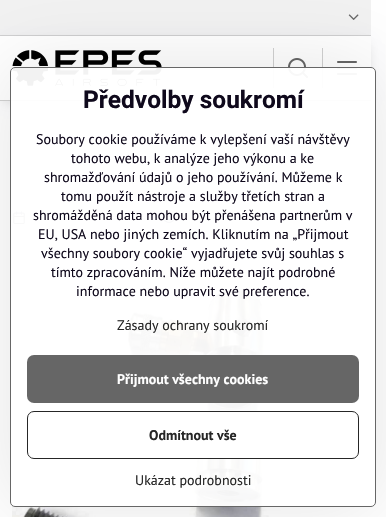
#include "include/core/SkBlurTypes.h"
#include "include/core/SkCanvas.h"
#include "include/core/SkData.h"
#include "include/core/SkFont.h"
#include "include/core/SkFontMgr.h"
#include "include/core/SkImage.h"
#include "include/core/SkMaskFilter.h"
#include "include/core/SkPaint.h"
#include "include/core/SkPathBuilder.h"
#include "include/core/SkTextBlob.h"
#include "include/effects/SkDashPathEffect.h"
#include "include/effects/SkGradientShader.h"
#include "include/utils/SkParsePath.h"

extern sk_sp<SkFontMgr> fontMgr;

void draw(SkCanvas* canvas) {
    SkPaint p;
    p.setAntiAlias(true);
    auto font = [&](const char* family, int weight, float size, bool italic = false) {
        SkFontStyle style(weight, SkFontStyle::kNormal_Width,
            italic ? SkFontStyle::kItalic_Slant : SkFontStyle::kUpright_Slant);
        SkFont result(fontMgr->matchFamilyStyle(family, style), size);
        result.setSubpixel(true);
        return result;
    };
    auto drawPhoto = [&](const char* path, float l, float t, float r, float b) {
        auto image = SkImages::DeferredFromEncodedData(SkData::MakeFromFileName(path));
        canvas->drawImageRect(image, SkRect::MakeLTRB(l, t, r, b), SkSamplingOptions());
    };
    canvas->clear(0xFFFFFFFF);
    p.setColor(0xFFF2F2F2);
    canvas->drawRect(SkRect::MakeLTRB(0, 0, 371, 35), p);
    p.setColor(0xFFD1D1D1);
    canvas->drawRect(SkRect::MakeLTRB(0, 35, 371, 36), p);
    drawPhoto("media/1.png", 348, 14, 359, 20);
    canvas->save();
    canvas->clipPath(SkPathBuilder(SkPathFillType::kEvenOdd).moveTo(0, 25).lineTo(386, 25).lineTo(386, 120).lineTo(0, 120).close().moveTo(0, 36).lineTo(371, 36).lineTo(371, 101).lineTo(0, 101).close().detach(), true);
    p.setColor(0x26000014);
    p.setMaskFilter(SkMaskFilter::MakeBlur(kNormal_SkBlurStyle, 6));
    canvas->drawRect(SkRect::MakeLTRB(4, 44, 367, 101), p);
    p.setMaskFilter(nullptr);
    canvas->restore();
    p.setColor(0xFFD1D1D1);
    canvas->drawRect(SkRect::MakeLTRB(0, 100, 371, 101), p);
    drawPhoto("media/2.png", 12, 50, 162, 86);
    canvas->drawRect(SkRect::MakeLTRB(273, 48, 274, 88), p);
    drawPhoto("media/3.png", 288, 58, 308, 78);
    canvas->drawRect(SkRect::MakeLTRB(322, 48, 323, 88), p);
    drawPhoto("media/4.png", 337, 61, 357, 75);
    drawPhoto("media/5.png", 13, 211, 25, 225);
    drawPhoto("media/6.png", 162, 212, 176, 223);
    drawPhoto("media/7.png", 12, 289, 269, 517);
    canvas->save();
    canvas->clipPath(SkPathBuilder(SkPathFillType::kEvenOdd).moveTo(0, 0).lineTo(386, 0).lineTo(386, 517).lineTo(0, 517).close().moveTo(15, 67).lineTo(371, 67).cubicTo(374, 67, 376, 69, 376, 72).lineTo(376, 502).cubicTo(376, 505, 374, 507, 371, 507).lineTo(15, 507).cubicTo(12, 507, 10, 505, 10, 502).lineTo(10, 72).cubicTo(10, 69, 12, 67, 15, 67).close().detach(), true);
    p.setColor(0x1A000000);
    p.setMaskFilter(SkMaskFilter::MakeBlur(kNormal_SkBlurStyle, 40));
    canvas->drawRoundRect(SkRect::MakeLTRB(10, 67, 376, 507), 5, 5, p);
    p.setMaskFilter(nullptr);
    canvas->restore();
    p.setColor(0xF2FFFFFF);
    canvas->drawRoundRect(SkRect::MakeLTRB(10.5f, 67.5f, 375.5f, 506.5f), 4.5f, 4.5f, p);
    p.setStyle(SkPaint::kStroke_Style);
    p.setStrokeWidth(1);
    p.setColor(0xFF666666);
    canvas->drawRoundRect(SkRect::MakeLTRB(10.5f, 67.5f, 375.5f, 506.5f), 4.5f, 4.5f, p);
    auto font1 = font("Roboto", 700, 24.5f);
    p.setStyle(SkPaint::kFill_Style);
    p.setColor(0xFF0F091C);
    canvas->drawString("Předvolby soukromí", 83, 108, font1, p);
    auto font2 = font("PT Sans", 400, 14);
    {
        const struct { const char* s; float x, y; } items[] = {
            {"Soubory cookie používáme k vylepšení vaší návštěvy", 36, 144},
            {"tohoto webu, k analýze jeho výkonu a ke", 71, 163},
            {"shromažďování údajů o jeho používání. Můžeme k", 44, 182},
            {"tomu použít nástroje a služby třetích stran a", 61, 201},
            {"shromážděná data mohou být přenášena partnerům v", 33, 220},
            {"EU, USA nebo jiných zemích. Kliknutím na „Přijmout", 38, 239},
            {"všechny soubory cookie“ vyjadřujete svůj souhlas s", 41, 258},
            {"tímto zpracováním. Níže můžete najít podrobné", 51, 277},
            {"informace nebo upravit své preference.", 76, 296},
        };
        for (auto [s, x, y] : items) {
            canvas->drawString(s, x, y, font2, p);
        }
    }
    p.setColor(0xFF262626);
    canvas->drawString("Zásady ochrany soukromí", 117, 330, font2, p);
    p.setColor(0xFF666666);
    canvas->drawRoundRect(SkRect::MakeLTRB(27, 355, 359, 403), 7, 7, p);
    auto font3 = font("PT Sans", 700, 14);
    p.setColor(0xFFFFFFFF);
    canvas->drawString("Přijmout všechny cookies", 117, 384, font3, p);
    canvas->drawRoundRect(SkRect::MakeLTRB(27.5f, 411.5f, 358.5f, 458.5f), 6.5f, 6.5f, p);
    p.setStyle(SkPaint::kStroke_Style);
    p.setColor(0xFF262626);
    canvas->drawRoundRect(SkRect::MakeLTRB(27.5f, 411.5f, 358.5f, 458.5f), 6.5f, 6.5f, p);
    p.setStyle(SkPaint::kFill_Style);
    canvas->drawString("Odmítnout vše", 149, 440, font3, p);
    canvas->drawString("Ukázat podrobnosti", 135, 485, font2, p);
}
